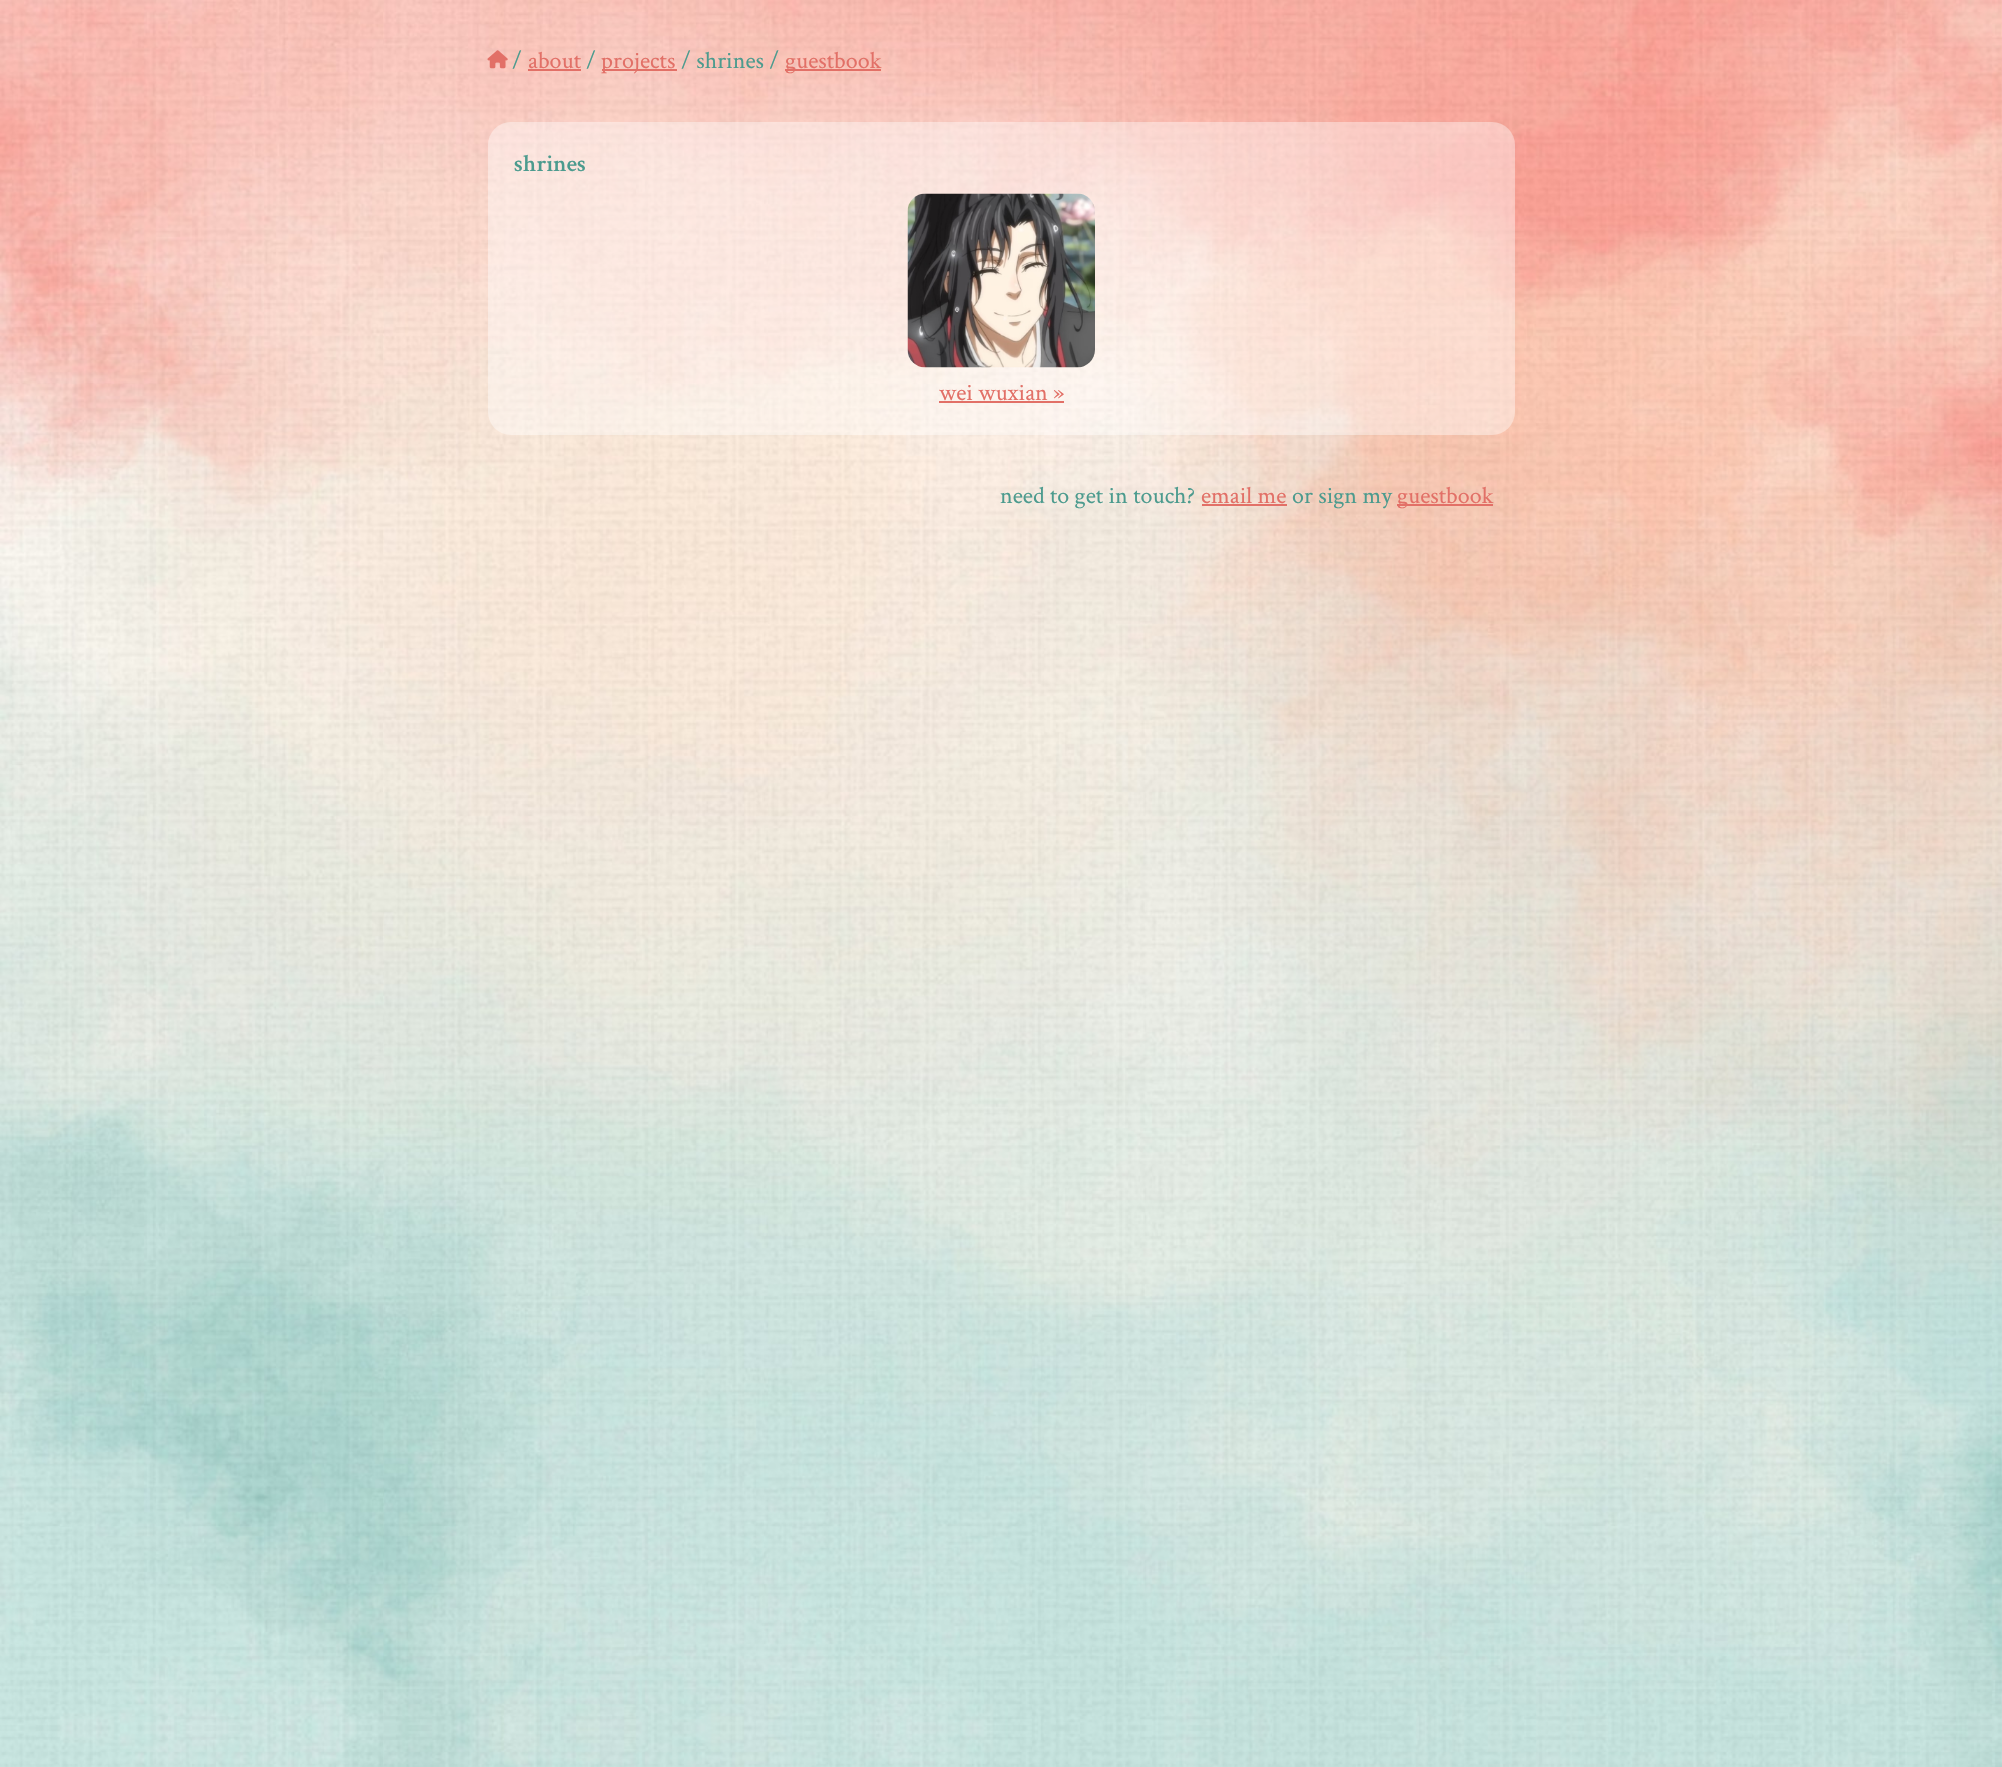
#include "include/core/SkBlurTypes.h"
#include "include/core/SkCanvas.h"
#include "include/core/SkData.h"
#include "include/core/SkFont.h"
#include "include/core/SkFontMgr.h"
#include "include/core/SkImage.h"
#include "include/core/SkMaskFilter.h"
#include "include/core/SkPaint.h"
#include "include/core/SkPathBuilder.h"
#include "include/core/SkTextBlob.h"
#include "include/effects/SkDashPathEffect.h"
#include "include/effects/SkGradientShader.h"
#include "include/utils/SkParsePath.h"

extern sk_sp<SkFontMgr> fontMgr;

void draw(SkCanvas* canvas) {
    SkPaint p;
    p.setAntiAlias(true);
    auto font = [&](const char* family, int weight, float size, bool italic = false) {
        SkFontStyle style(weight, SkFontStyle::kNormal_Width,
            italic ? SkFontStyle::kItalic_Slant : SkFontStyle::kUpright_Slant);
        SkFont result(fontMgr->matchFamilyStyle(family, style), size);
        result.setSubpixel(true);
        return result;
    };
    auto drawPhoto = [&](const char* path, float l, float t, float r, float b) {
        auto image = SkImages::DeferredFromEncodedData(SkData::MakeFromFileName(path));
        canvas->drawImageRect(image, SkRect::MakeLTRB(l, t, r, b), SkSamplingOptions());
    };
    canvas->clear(0xFFFFFFFF);
    drawPhoto("media/1.png", 0, 0, 2002, 1767);
    drawPhoto("media/2.png", 487, 50, 508, 69);
    auto font1 = font("Crimson Text", 400, 24);
    p.setColor(0xFF4C9B8E);
    canvas->drawString("/", 512, 68, font1, p);
    p.setColor(0xFFE27067);
    canvas->drawString("about", 528, 68, font1, p);
    canvas->drawRect(SkRect::MakeLTRB(528, 69, 581, 71), p);
    p.setColor(0xFF4C9B8E);
    canvas->drawString("/", 586, 68, font1, p);
    p.setColor(0xFFE27067);
    canvas->drawRect(SkRect::MakeLTRB(602, 69, 677, 71), p);
    canvas->drawString("projects", 601, 68, font1, p);
    p.setColor(0xFF4C9B8E);
    canvas->drawString("/ shrines /", 681, 68, font1, p);
    p.setColor(0xFFE27067);
    canvas->drawRect(SkRect::MakeLTRB(785, 69, 881, 71), p);
    canvas->drawString("guestbook", 785, 68, font1, p);
    p.setColor(0x66FFFFFF);
    canvas->drawRoundRect(SkRect::MakeLTRB(488, 122, 1515, 435), 23, 23, p);
    auto font2 = font("Crimson Text", 600, 24);
    p.setColor(0xFF4C9B8E);
    canvas->drawString("shrines", 514, 171, font2, p);
    drawPhoto("media/3.png", 907, 193, 1095, 368);
    p.setColor(0xFFE27067);
    canvas->drawString("wei wuxian »", 939, 400, font1, p);
    canvas->drawRect(SkRect::MakeLTRB(939, 401, 1064, 403), p);
    p.setColor(0xFF4C9B8E);
    canvas->drawString("need to get in touch?", 1000, 503, font1, p);
    p.setColor(0xFFE27067);
    canvas->drawString("email me", 1201, 503, font1, p);
    canvas->drawRect(SkRect::MakeLTRB(1202, 504, 1287, 506), p);
    p.setColor(0xFF4C9B8E);
    canvas->drawString("or sign my", 1292, 503, font1, p);
    p.setColor(0xFFE27067);
    canvas->drawRect(SkRect::MakeLTRB(1397, 504, 1493, 506), p);
    canvas->drawString("guestbook", 1397, 503, font1, p);
}
